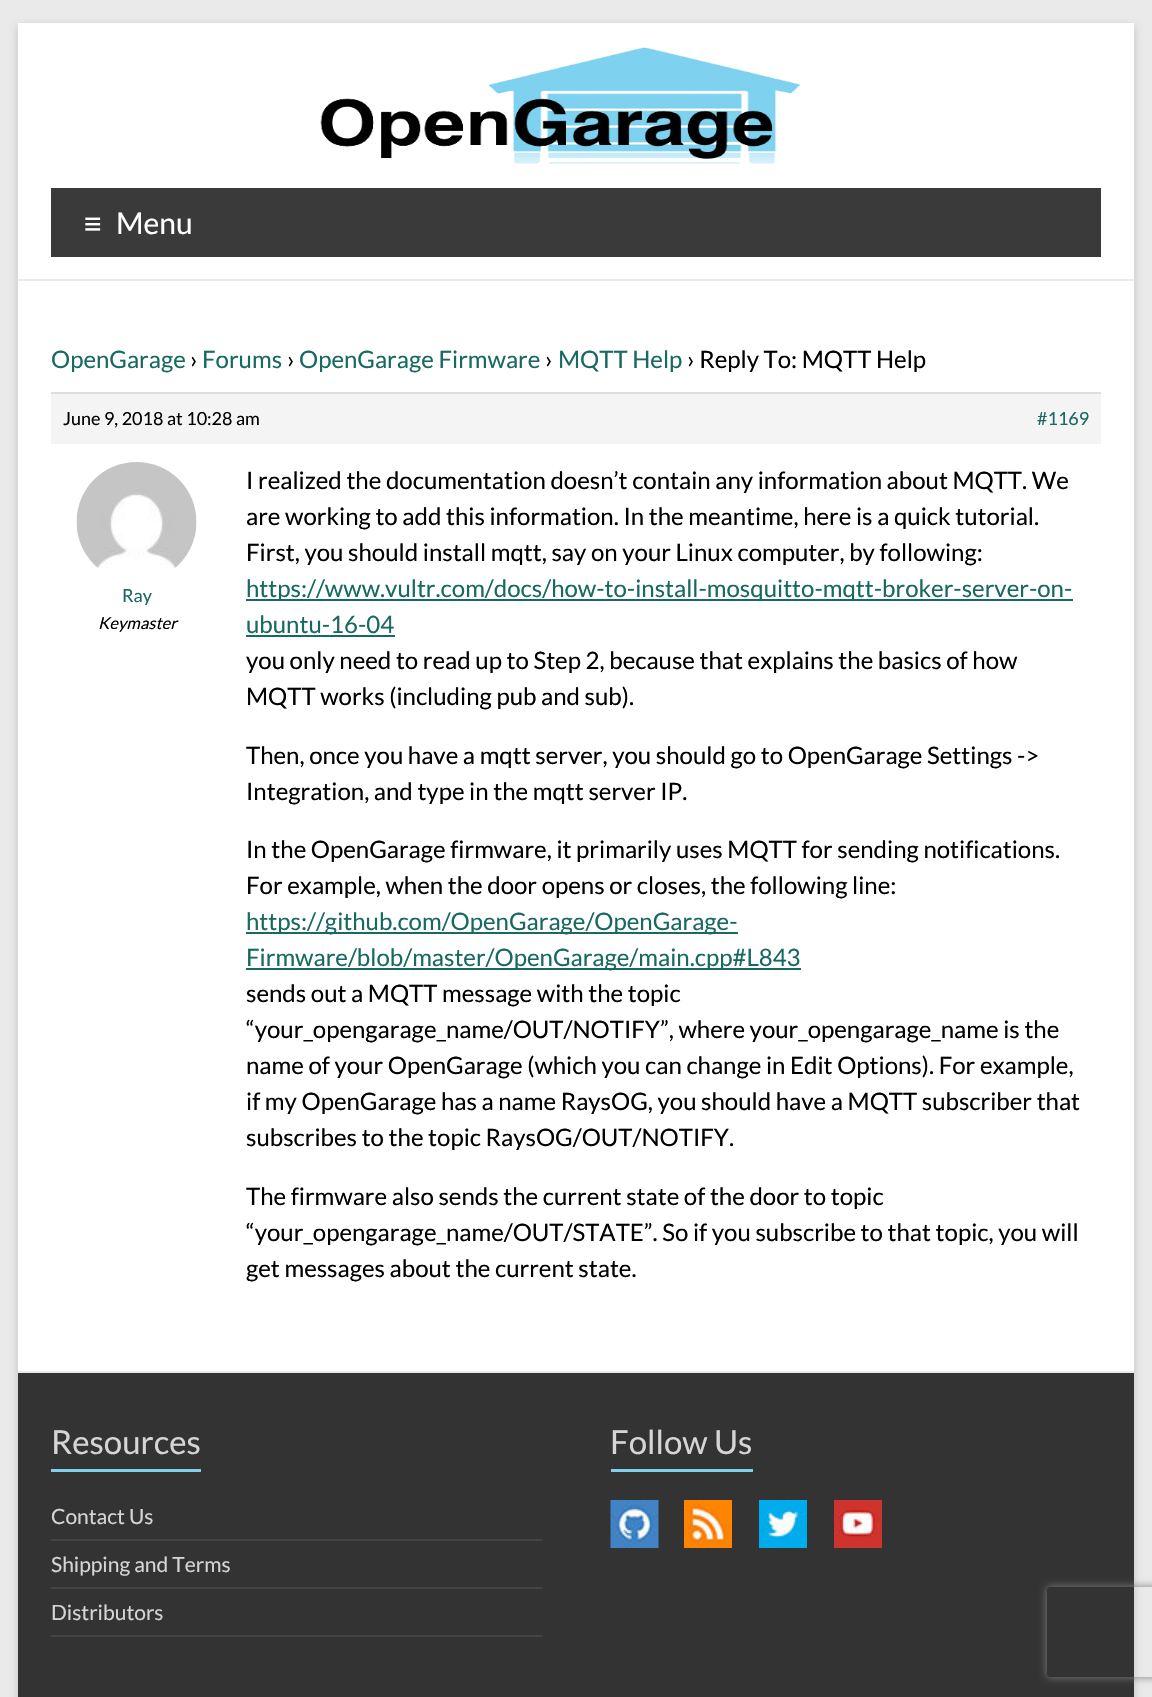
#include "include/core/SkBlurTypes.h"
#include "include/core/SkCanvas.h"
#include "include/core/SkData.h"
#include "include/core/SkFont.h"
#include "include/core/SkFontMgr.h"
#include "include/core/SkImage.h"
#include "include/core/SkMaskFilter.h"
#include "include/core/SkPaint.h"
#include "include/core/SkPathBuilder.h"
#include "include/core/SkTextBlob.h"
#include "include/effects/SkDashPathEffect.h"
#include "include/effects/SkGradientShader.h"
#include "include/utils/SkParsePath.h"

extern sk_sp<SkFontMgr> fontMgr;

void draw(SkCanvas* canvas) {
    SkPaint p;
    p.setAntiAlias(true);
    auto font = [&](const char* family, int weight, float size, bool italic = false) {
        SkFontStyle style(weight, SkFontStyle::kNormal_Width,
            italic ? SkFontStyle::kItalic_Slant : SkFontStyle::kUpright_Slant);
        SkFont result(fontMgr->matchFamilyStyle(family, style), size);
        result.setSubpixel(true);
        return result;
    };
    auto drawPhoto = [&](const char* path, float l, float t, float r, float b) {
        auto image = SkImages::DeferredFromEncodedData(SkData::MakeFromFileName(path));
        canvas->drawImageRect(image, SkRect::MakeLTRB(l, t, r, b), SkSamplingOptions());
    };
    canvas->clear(0xFFEAEAEA);
    p.setColor(0x4D646464);
    p.setMaskFilter(SkMaskFilter::MakeBlur(kNormal_SkBlurStyle, 4.5f));
    canvas->drawRect(SkRect::MakeLTRB(18, 26, 1134, 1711), p);
    p.setMaskFilter(nullptr);
    p.setColor(0xFFFFFFFF);
    canvas->drawRect(SkRect::MakeLTRB(18, 23, 1134, 1371), p);
    p.setColor(0xFFEAEAEA);
    canvas->drawRect(SkRect::MakeLTRB(18, 279, 1134, 281), p);
    drawPhoto("media/1.png", 320, 47, 801, 164);
    p.setColor(0xFF3A3A3A);
    canvas->drawRect(SkRect::MakeLTRB(51, 188, 1101, 257), p);
    auto font1 = font("Liberation Sans", 400, 30);
    p.setColor(0xFFFFFFFF);
    canvas->drawString("≡", 84, 234, font1, p);
    auto font2 = font("Lato", 400, 30);
    canvas->drawString("Menu", 116, 234, font2, p);
    auto font3 = font("Lato", 400, 24);
    p.setColor(0xFF186961);
    canvas->drawString("OpenGarage", 51, 368, font3, p);
    p.setColor(0xFF000000);
    canvas->drawString("›", 190, 368, font3, p);
    p.setColor(0xFF186961);
    canvas->drawString("Forums", 202, 368, font3, p);
    p.setColor(0xFF000000);
    canvas->drawString("›", 287, 368, font3, p);
    p.setColor(0xFF186961);
    canvas->drawString("OpenGarage Firmware", 299, 368, font3, p);
    p.setColor(0xFF000000);
    canvas->drawString("›", 545, 368, font3, p);
    p.setColor(0xFF186961);
    canvas->drawString("MQTT Help", 558, 368, font3, p);
    p.setColor(0xFF000000);
    canvas->drawString("› Reply To: MQTT Help", 687, 368, font3, p);
    p.setColor(0xFFF4F4F4);
    canvas->drawRect(SkRect::MakeLTRB(51, 394, 1101, 444), p);
    p.setColor(0xFFDDDDDD);
    canvas->drawRect(SkRect::MakeLTRB(51, 392, 1101, 394), p);
    auto font4 = font("Lato", 400, 18);
    p.setColor(0xFF000000);
    canvas->drawString("June 9, 2018 at 10:28 am", 63, 425, font4, p);
    p.setColor(0xFF186961);
    canvas->drawString("#1169", 1037, 425, font4, p);
    drawPhoto("media/2.png", 76, 462, 197, 568);
    canvas->drawString("Ray", 122, 602, font4, p);
    auto font5 = font("Lato", 400, 16.5f, true);
    p.setColor(0xFF000000);
    canvas->drawString("Keymaster", 98, 629, font5, p);
    {
        const struct { const char* s; float x, y; } items[] = {
            {"I realized the documentation doesn’t contain any information about MQTT. We", 246, 489},
            {"are working to add this information. In the meantime, here is a quick tutorial.", 246, 525},
            {"First, you should install mqtt, say on your Linux computer, by following:", 246, 561},
        };
        for (auto [s, x, y] : items) {
            canvas->drawString(s, x, y, font3, p);
        }
    }
    p.setColor(0xFF186961);
    canvas->drawRect(SkRect::MakeLTRB(246, 599, 1073, 601), p);
    canvas->drawString("https://www.vultr.com/docs/how-to-install-mosquitto-mqtt-broker-server-on-", 246, 597, font3, p);
    canvas->drawString("ubuntu-16-04", 246, 633, font3, p);
    canvas->drawRect(SkRect::MakeLTRB(246, 635, 395, 637), p);
    p.setColor(0xFF000000);
    {
        const struct { const char* s; float x, y; } items[] = {
            {"you only need to read up to Step 2, because that explains the basics of how", 246, 669},
            {"MQTT works (including pub and sub).", 246, 705},
            {"Then, once you have a mqtt server, you should go to OpenGarage Settings ->", 246, 764},
            {"Integration, and type in the mqtt server IP.", 246, 800},
            {"In the OpenGarage firmware, it primarily uses MQTT for sending notifications.", 246, 858},
            {"For example, when the door opens or closes, the following line:", 246, 894},
        };
        for (auto [s, x, y] : items) {
            canvas->drawString(s, x, y, font3, p);
        }
    }
    p.setColor(0xFF186961);
    canvas->drawRect(SkRect::MakeLTRB(246, 932, 738, 934), p);
    canvas->drawString("https://github.com/OpenGarage/OpenGarage-", 246, 930, font3, p);
    canvas->drawRect(SkRect::MakeLTRB(246, 968, 801, 970), p);
    canvas->drawString("Firmware/blob/master/OpenGarage/main.cpp#L843", 246, 966, font3, p);
    p.setColor(0xFF000000);
    {
        const struct { const char* s; float x, y; } items[] = {
            {"sends out a MQTT message with the topic", 246, 1002},
            {"“your_opengarage_name/OUT/NOTIFY”, where your_opengarage_name is the", 246, 1038},
            {"name of your OpenGarage (which you can change in Edit Options). For example,", 246, 1074},
            {"if my OpenGarage has a name RaysOG, you should have a MQTT subscriber that", 246, 1110},
            {"subscribes to the topic RaysOG/OUT/NOTIFY.", 246, 1146},
            {"The firmware also sends the current state of the door to topic", 246, 1205},
            {"“your_opengarage_name/OUT/STATE”. So if you subscribe to that topic, you will", 246, 1241},
            {"get messages about the current state.", 246, 1277},
        };
        for (auto [s, x, y] : items) {
            canvas->drawString(s, x, y, font3, p);
        }
    }
    p.setColor(0xFF333333);
    canvas->drawRect(SkRect::MakeLTRB(18, 1373, 1134, 1697), p);
    p.setColor(0xFFEAEAEA);
    canvas->drawRect(SkRect::MakeLTRB(18, 1371, 1134, 1373), p);
    auto font6 = font("Lato", 400, 33);
    p.setColor(0xFFD5D5D5);
    canvas->drawString("Resources", 51, 1454, font6, p);
    p.setColor(0xFF80CFED);
    canvas->drawRect(SkRect::MakeLTRB(51, 1469, 201, 1472), p);
    p.setColor(0xFF444444);
    canvas->drawRect(SkRect::MakeLTRB(51, 1539, 542, 1541), p);
    auto font7 = font("Lato", 400, 21);
    p.setColor(0xFFD5D5D5);
    canvas->drawString("Contact Us", 51, 1524, font7, p);
    p.setColor(0xFF444444);
    canvas->drawRect(SkRect::MakeLTRB(51, 1587, 542, 1589), p);
    p.setColor(0xFFD5D5D5);
    canvas->drawString("Shipping and Terms", 51, 1572, font7, p);
    p.setColor(0xFF444444);
    canvas->drawRect(SkRect::MakeLTRB(51, 1635, 542, 1637), p);
    p.setColor(0xFFD5D5D5);
    canvas->drawString("Distributors", 51, 1620, font7, p);
    canvas->drawString("Follow Us", 610, 1454, font6, p);
    p.setColor(0xFF80CFED);
    canvas->drawRect(SkRect::MakeLTRB(611, 1469, 753, 1472), p);
    drawPhoto("media/3.png", 610, 1500, 659, 1548);
    drawPhoto("media/4.png", 684, 1500, 732, 1548);
    drawPhoto("media/5.png", 759, 1500, 807, 1548);
    drawPhoto("media/6.png", 834, 1500, 882, 1548);
    canvas->save();
    canvas->clipPath(SkPathBuilder(SkPathFillType::kEvenOdd).moveTo(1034, 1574).lineTo(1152, 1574).lineTo(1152, 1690).lineTo(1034, 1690).close().moveTo(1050, 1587).lineTo(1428, 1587).cubicTo(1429.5f, 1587, 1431, 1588.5f, 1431, 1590).lineTo(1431, 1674).cubicTo(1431, 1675.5f, 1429.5f, 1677, 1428, 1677).lineTo(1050, 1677).cubicTo(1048.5f, 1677, 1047, 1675.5f, 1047, 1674).lineTo(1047, 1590).cubicTo(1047, 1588.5f, 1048.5f, 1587, 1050, 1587).close().detach(), true);
    p.setColor(0xFF808080);
    p.setMaskFilter(SkMaskFilter::MakeBlur(kNormal_SkBlurStyle, 4));
    canvas->drawRoundRect(SkRect::MakeLTRB(1047, 1587, 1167, 1677), 3, 3, p);
    p.setMaskFilter(nullptr);
    canvas->restore();
}
